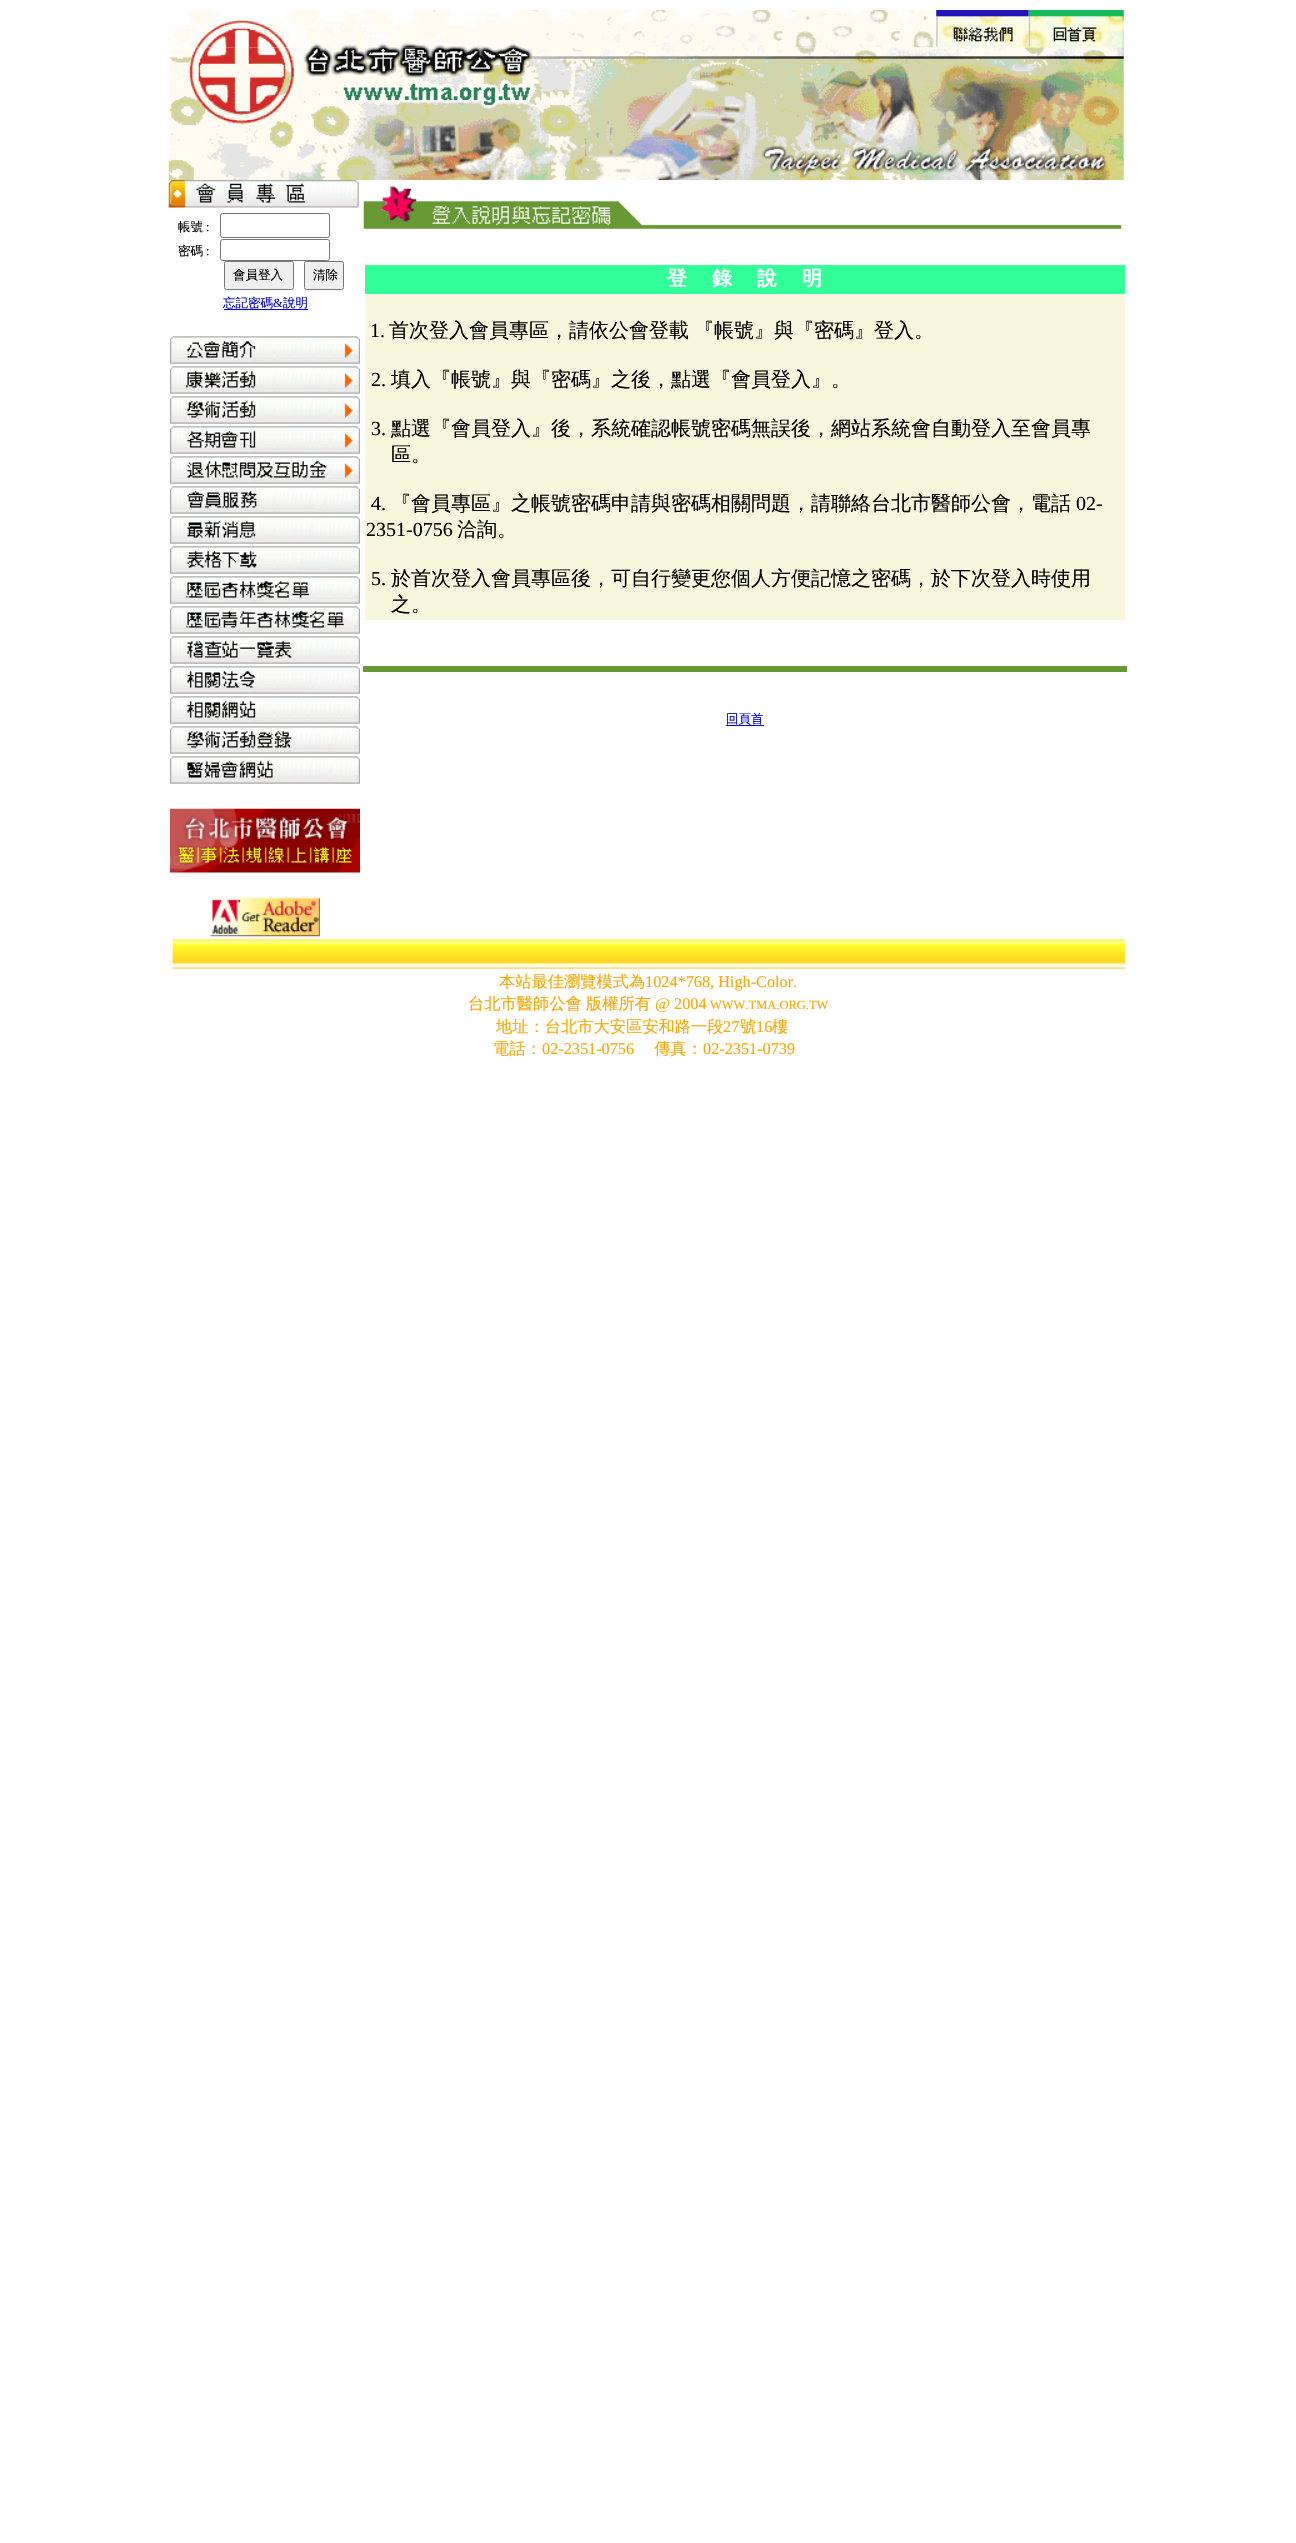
#include "include/core/SkBlurTypes.h"
#include "include/core/SkCanvas.h"
#include "include/core/SkData.h"
#include "include/core/SkFont.h"
#include "include/core/SkFontMgr.h"
#include "include/core/SkImage.h"
#include "include/core/SkMaskFilter.h"
#include "include/core/SkPaint.h"
#include "include/core/SkPathBuilder.h"
#include "include/core/SkTextBlob.h"
#include "include/effects/SkDashPathEffect.h"
#include "include/effects/SkGradientShader.h"
#include "include/utils/SkParsePath.h"

extern sk_sp<SkFontMgr> fontMgr;

void draw(SkCanvas* canvas) {
    SkPaint p;
    p.setAntiAlias(true);
    auto font = [&](const char* family, int weight, float size, bool italic = false) {
        SkFontStyle style(weight, SkFontStyle::kNormal_Width,
            italic ? SkFontStyle::kItalic_Slant : SkFontStyle::kUpright_Slant);
        SkFont result(fontMgr->matchFamilyStyle(family, style), size);
        result.setSubpixel(true);
        return result;
    };
    auto drawTracked = [&](const char* s, float x, float y, const SkFont& font, const SkPaint& ink, float letter, float word) {
        std::vector<SkGlyphID> glyphs(font.countText(s, strlen(s), SkTextEncoding::kUTF8));
        std::vector<float> xs(glyphs.size());
        font.textToGlyphs(s, strlen(s), SkTextEncoding::kUTF8, glyphs);
        font.getXPos(glyphs, xs, x);
        float extra = 0;
        for (size_t i = 0; i < glyphs.size(); i++) {
            xs[i] += extra;
            extra += letter + word * (glyphs[i] == font.unicharToGlyph(' '));
        }
        canvas->drawTextBlob(SkTextBlob::MakeFromPosHGlyphs(glyphs, xs, y, font), 0, 0, ink);
    };
    auto drawPhoto = [&](const char* path, float l, float t, float r, float b) {
        auto image = SkImages::DeferredFromEncodedData(SkData::MakeFromFileName(path));
        canvas->drawImageRect(image, SkRect::MakeLTRB(l, t, r, b), SkSamplingOptions());
    };
    canvas->clear(0xFFFFFFFF);
    drawPhoto("media/1.png", 168, 10, 937, 48);
    drawPhoto("media/2.png", 936, 10, 1029, 48);
    drawPhoto("media/3.png", 1028, 10, 1124, 48);
    drawPhoto("media/4.png", 168, 47, 1124, 180);
    drawPhoto("media/5.png", 168, 180, 359, 208);
    auto font1 = font("WenQuanYi Zen Hei", 500, 12.5f);
    p.setColor(0xFF000000);
    canvas->drawString("帳號", 178, 231, font1, p);
    auto font2 = font("Liberation Serif", 400, 12.5f);
    canvas->drawString(":", 206, 231, font2, p);
    p.setStyle(SkPaint::kStroke_Style);
    p.setStrokeWidth(1);
    p.setColor(0xFF767676);
    canvas->drawRoundRect(SkRect::MakeLTRB(220.5f, 213.5f, 329.5f, 237.5f), 2, 2, p);
    p.setStyle(SkPaint::kFill_Style);
    p.setColor(0xFF000000);
    canvas->drawString("密碼", 178, 255, font1, p);
    canvas->drawString(":", 206, 255, font2, p);
    p.setStyle(SkPaint::kStroke_Style);
    p.setColor(0xFF767676);
    canvas->drawRoundRect(SkRect::MakeLTRB(220.5f, 239.5f, 329.5f, 260.5f), 2, 2, p);
    p.setStyle(SkPaint::kFill_Style);
    p.setColor(0xFFEFEFEF);
    canvas->drawRoundRect(SkRect::MakeLTRB(224.5f, 261.5f, 293.5f, 289.5f), 2, 2, p);
    p.setStyle(SkPaint::kStroke_Style);
    p.setColor(0xFF767676);
    canvas->drawRoundRect(SkRect::MakeLTRB(224.5f, 261.5f, 293.5f, 289.5f), 2, 2, p);
    p.setStyle(SkPaint::kFill_Style);
    p.setColor(0xFF000000);
    canvas->drawString("會員登入", 233, 279, font1, p);
    p.setColor(0xFFEFEFEF);
    canvas->drawRoundRect(SkRect::MakeLTRB(304.5f, 261.5f, 343.5f, 289.5f), 2, 2, p);
    p.setStyle(SkPaint::kStroke_Style);
    p.setColor(0xFF767676);
    canvas->drawRoundRect(SkRect::MakeLTRB(304.5f, 261.5f, 343.5f, 289.5f), 2, 2, p);
    p.setStyle(SkPaint::kFill_Style);
    p.setColor(0xFF000000);
    canvas->drawString("清除", 313, 279, font1, p);
    p.setColor(0xFF0000EE);
    canvas->drawString("忘記密碼", 223, 307, font1, p);
    canvas->drawString("&", 273, 307, font2, p);
    canvas->drawRect(SkRect::MakeLTRB(224, 309, 308, 310), p);
    canvas->drawString("說明", 283, 307, font1, p);
    drawPhoto("media/6.png", 170, 336, 360, 364);
    drawPhoto("media/7.png", 170, 366, 360, 394);
    drawPhoto("media/8.png", 170, 396, 360, 424);
    drawPhoto("media/9.png", 170, 426, 360, 454);
    drawPhoto("media/10.png", 170, 456, 360, 484);
    drawPhoto("media/11.png", 170, 486, 360, 514);
    drawPhoto("media/12.png", 170, 516, 360, 544);
    drawPhoto("media/13.png", 170, 546, 360, 574);
    drawPhoto("media/14.png", 170, 576, 360, 604);
    drawPhoto("media/15.png", 170, 606, 360, 634);
    drawPhoto("media/16.png", 170, 636, 360, 664);
    drawPhoto("media/17.png", 170, 666, 360, 694);
    drawPhoto("media/18.png", 170, 696, 360, 724);
    drawPhoto("media/19.png", 170, 726, 360, 754);
    drawPhoto("media/20.png", 170, 756, 360, 784);
    drawPhoto("media/21.png", 170, 808, 360, 873);
    drawPhoto("media/22.png", 210, 897, 320, 937);
    drawPhoto("media/23.png", 363, 186, 1122, 229);
    p.setColor(0xFF33FF99);
    canvas->drawRect(SkRect::MakeLTRB(365, 265, 1125, 294), p);
    auto font3 = font("WenQuanYi Zen Hei", 700, 20);
    p.setColor(0xFFFFFFFF);
    {
        const struct { const char* s; float x, y; } items[] = {
            {"登", 667, 285},
            {"錄", 712, 285},
            {"說", 757, 285},
            {"明", 802, 285},
        };
        for (auto [s, x, y] : items) {
            canvas->drawString(s, x, y, font3, p);
        }
    }
    p.setColor(0xFFF7F7DE);
    canvas->drawRect(SkRect::MakeLTRB(365, 295, 1125, 620), p);
    auto font4 = font("Liberation Serif", 400, 20);
    p.setColor(0xFF000000);
    canvas->drawString("1.", 370, 337, font4, p);
    auto font5 = font("WenQuanYi Zen Hei", 500, 20);
    drawTracked("首次登入會員專區，請依公會登載 『帳號』與『密碼』登入。", 389, 337, font5, p, 0, -1);
    canvas->drawString("2.", 371, 386, font4, p);
    canvas->drawString("填入『帳號』與『密碼』之後，點選『會員登入』。", 391, 386, font5, p);
    canvas->drawString("3.", 371, 435, font4, p);
    canvas->drawString("點選『會員登入』後，系統確認帳號密碼無誤後，網站系統會自動登入至會員專", 391, 435, font5, p);
    canvas->drawString("區。", 391, 461, font5, p);
    canvas->drawString("4.", 371, 510, font4, p);
    canvas->drawString("『會員專區』之帳號密碼申請與密碼相關問題，請聯絡台北市醫師公會，電話", 391, 510, font5, p);
    canvas->drawString("02-", 1076, 510, font4, p);
    canvas->drawString("2351-0756", 366, 536, font4, p);
    canvas->drawString("洽詢。", 457, 536, font5, p);
    canvas->drawString("5.", 371, 585, font4, p);
    canvas->drawString("於首次登入會員專區後，可自行變更您個人方便記憶之密碼，於下次登入時使用", 391, 585, font5, p);
    canvas->drawString("之。", 391, 611, font5, p);
    p.setColor(0xFF669933);
    canvas->drawRect(SkRect::MakeLTRB(363, 666, 1127, 672), p);
    p.setColor(0xFF0000EE);
    canvas->drawString("回頁首", 726, 723, font1, p);
    canvas->drawRect(SkRect::MakeLTRB(726, 725, 764, 726), p);
    drawPhoto("media/24.png", 172, 938, 1125, 969);
    auto font6 = font("WenQuanYi Zen Hei", 500, 16.25f);
    p.setColor(0xFFFFA500);
    canvas->drawString("本站最佳瀏覽模式為", 499, 987, font6, p);
    auto font7 = font("Liberation Serif", 400, 16.25f);
    canvas->drawString("1024*768, High-Color.", 645, 987, font7, p);
    canvas->drawString("台北市醫師公會", 468, 1009, font6, p);
    canvas->drawString("版權所有", 586, 1009, font6, p);
    canvas->drawString("@ 2004", 655, 1009, font7, p);
    canvas->drawString("WWW.TMA.ORG.TW", 710, 1009, font2, p);
    canvas->drawString("地址：台北市大安區安和路一段", 496, 1032, font6, p);
    canvas->drawString("27", 723, 1032, font7, p);
    canvas->drawString("號", 740, 1032, font6, p);
    canvas->drawString("16", 756, 1032, font7, p);
    canvas->drawString("樓", 772, 1032, font6, p);
    canvas->drawString("電話：", 493, 1054, font6, p);
    canvas->drawString("02-2351-0756", 542, 1054, font7, p);
    canvas->drawString("傳真：", 654, 1054, font6, p);
    canvas->drawString("02-2351-0739", 703, 1054, font7, p);
}
